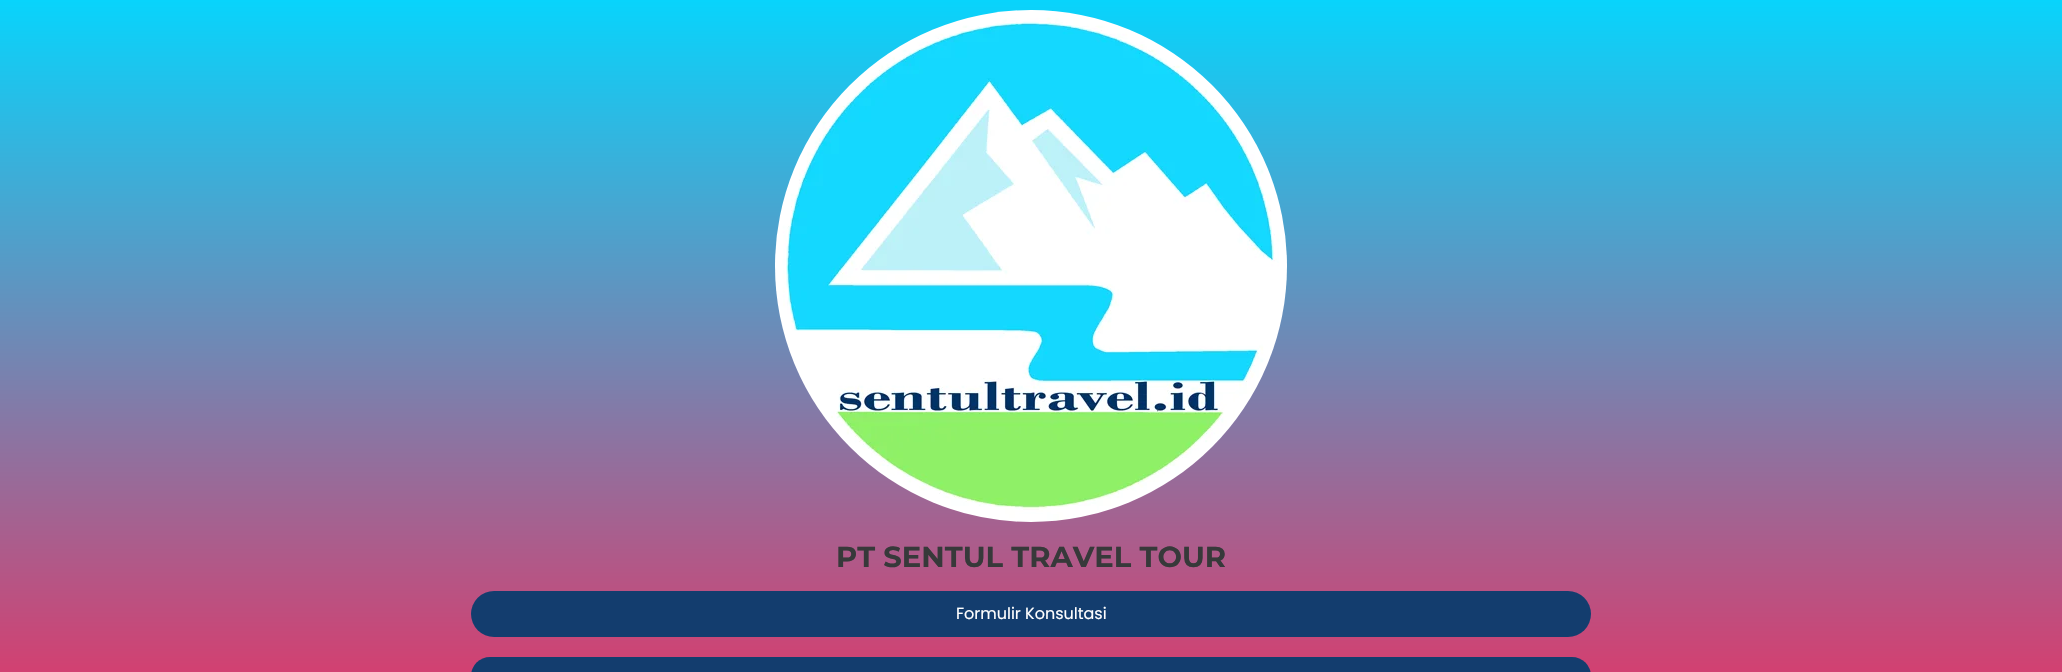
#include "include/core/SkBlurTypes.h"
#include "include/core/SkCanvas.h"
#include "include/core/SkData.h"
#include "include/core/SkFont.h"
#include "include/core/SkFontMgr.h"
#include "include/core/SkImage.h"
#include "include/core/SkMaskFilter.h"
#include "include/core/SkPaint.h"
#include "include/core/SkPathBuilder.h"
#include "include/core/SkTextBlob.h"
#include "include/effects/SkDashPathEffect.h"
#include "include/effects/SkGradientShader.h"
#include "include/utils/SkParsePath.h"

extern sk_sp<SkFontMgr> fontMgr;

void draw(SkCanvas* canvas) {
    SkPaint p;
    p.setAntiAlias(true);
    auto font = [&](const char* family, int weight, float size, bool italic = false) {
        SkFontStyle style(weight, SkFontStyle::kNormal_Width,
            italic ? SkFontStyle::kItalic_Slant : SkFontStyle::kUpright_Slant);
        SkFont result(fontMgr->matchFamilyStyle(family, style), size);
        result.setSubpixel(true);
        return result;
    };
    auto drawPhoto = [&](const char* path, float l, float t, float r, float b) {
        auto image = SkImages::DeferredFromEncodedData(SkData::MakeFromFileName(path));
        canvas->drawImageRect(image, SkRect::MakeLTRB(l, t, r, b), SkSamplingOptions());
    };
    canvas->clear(0xFFFFFFFF);
    {
        const SkColor colors[] = {0xFF08D4FC, 0xFFF2295B};
        const float stops[] = {0, 1};
        const SkPoint ends[] = {{1031, 0}, {1031, 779}};
        p.setShader(SkGradientShader::MakeLinear(ends, colors, stops, 2, SkTileMode::kClamp));
        p.setAlpha(255);
    }
    canvas->drawRect(SkRect::MakeLTRB(0, 0, 2062, 672), p);
    drawPhoto("media/1.png", 775, 10, 1287, 522);
    auto font1 = font("Montserrat", 700, 29);
    p.setShader(nullptr);
    p.setColor(0xFF37393A);
    canvas->drawString("PT SENTUL TRAVEL TOUR", 836, 567, font1, p);
    p.setColor(0xFF133D6E);
    canvas->drawRoundRect(SkRect::MakeLTRB(471, 591, 1591, 637), 23, 23, p);
    auto font2 = font("Poppins", 400, 16);
    p.setColor(0xFFFFFFFF);
    canvas->drawString("Formulir Konsultasi", 956, 619, font2, p);
    p.setColor(0xFF133D6E);
    canvas->drawRoundRect(SkRect::MakeLTRB(471, 657, 1591, 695), 23, 23, p);
}
